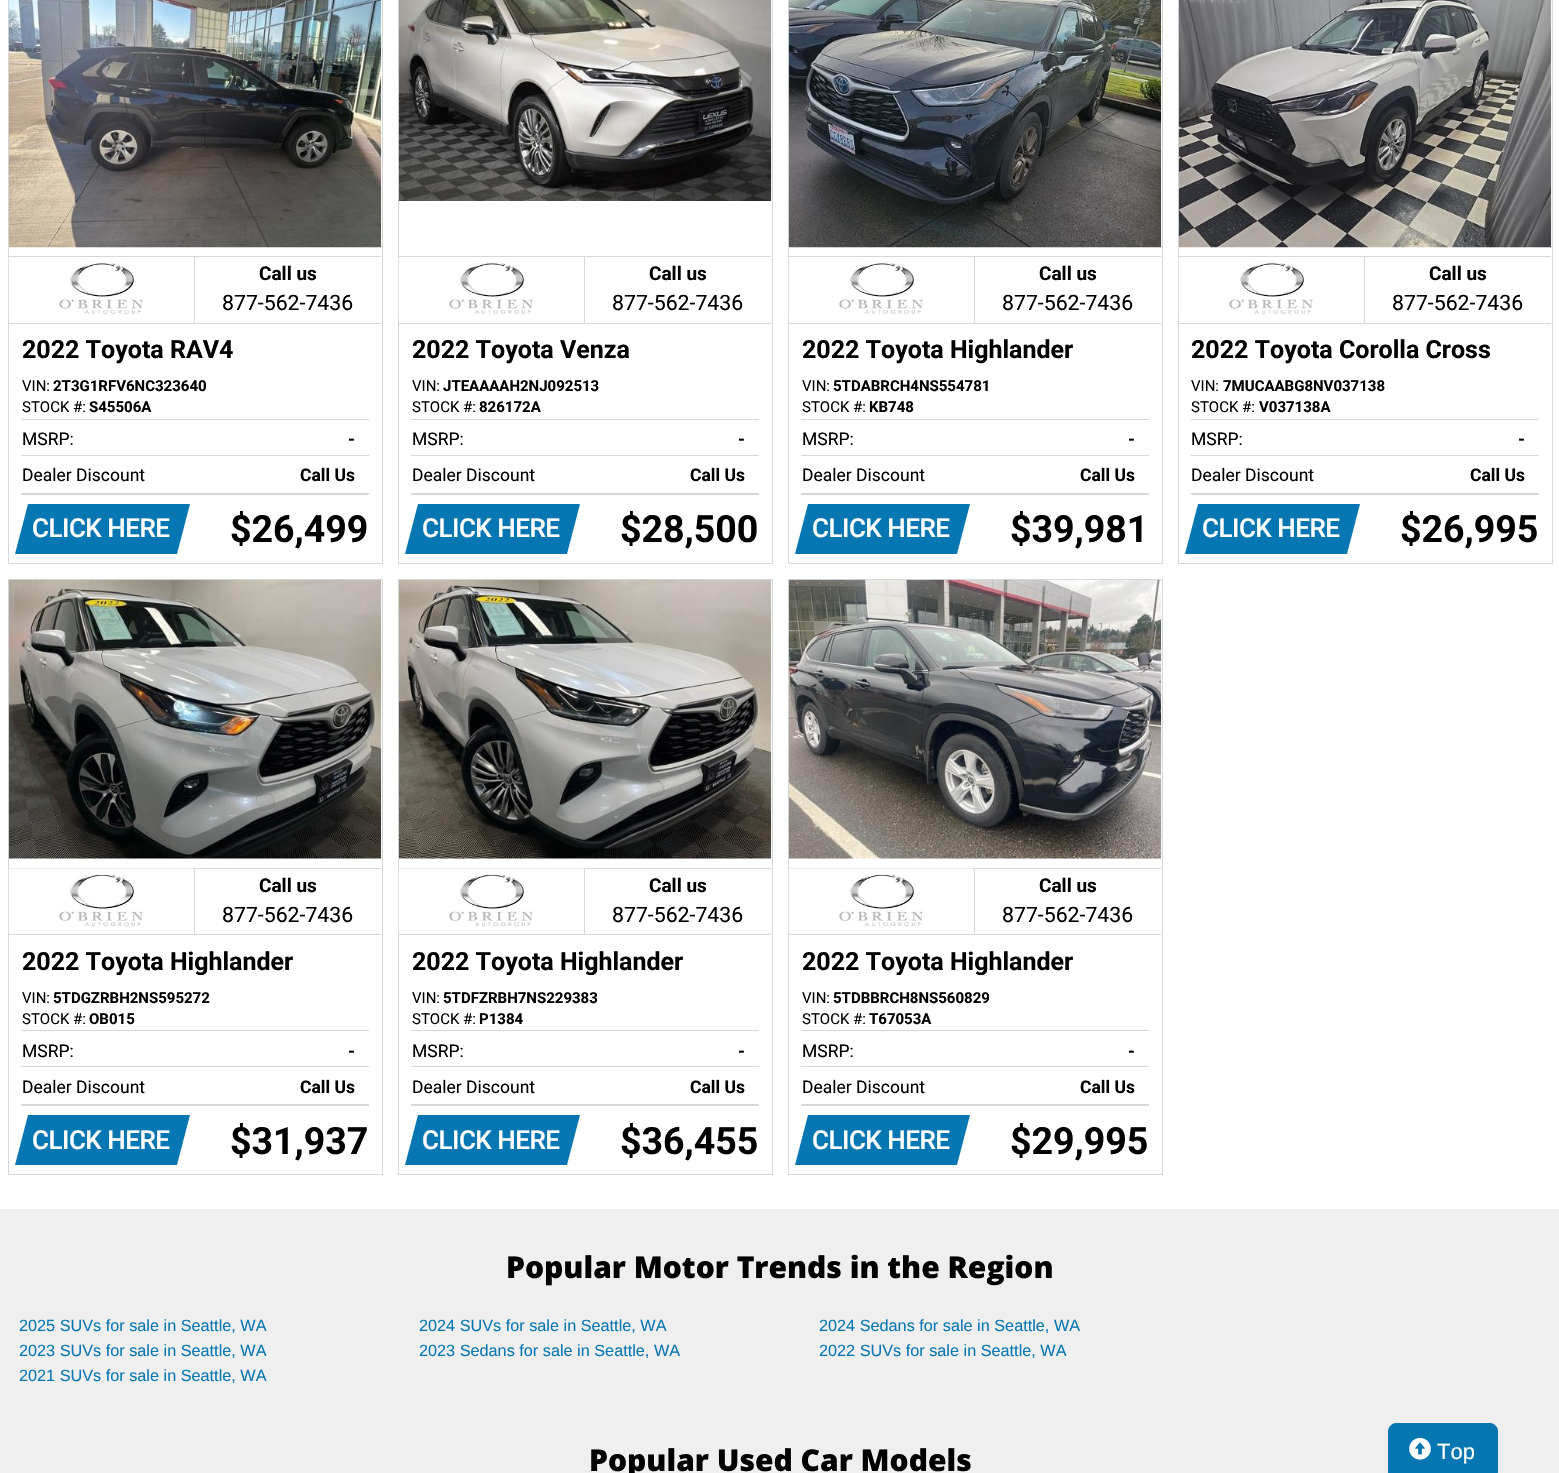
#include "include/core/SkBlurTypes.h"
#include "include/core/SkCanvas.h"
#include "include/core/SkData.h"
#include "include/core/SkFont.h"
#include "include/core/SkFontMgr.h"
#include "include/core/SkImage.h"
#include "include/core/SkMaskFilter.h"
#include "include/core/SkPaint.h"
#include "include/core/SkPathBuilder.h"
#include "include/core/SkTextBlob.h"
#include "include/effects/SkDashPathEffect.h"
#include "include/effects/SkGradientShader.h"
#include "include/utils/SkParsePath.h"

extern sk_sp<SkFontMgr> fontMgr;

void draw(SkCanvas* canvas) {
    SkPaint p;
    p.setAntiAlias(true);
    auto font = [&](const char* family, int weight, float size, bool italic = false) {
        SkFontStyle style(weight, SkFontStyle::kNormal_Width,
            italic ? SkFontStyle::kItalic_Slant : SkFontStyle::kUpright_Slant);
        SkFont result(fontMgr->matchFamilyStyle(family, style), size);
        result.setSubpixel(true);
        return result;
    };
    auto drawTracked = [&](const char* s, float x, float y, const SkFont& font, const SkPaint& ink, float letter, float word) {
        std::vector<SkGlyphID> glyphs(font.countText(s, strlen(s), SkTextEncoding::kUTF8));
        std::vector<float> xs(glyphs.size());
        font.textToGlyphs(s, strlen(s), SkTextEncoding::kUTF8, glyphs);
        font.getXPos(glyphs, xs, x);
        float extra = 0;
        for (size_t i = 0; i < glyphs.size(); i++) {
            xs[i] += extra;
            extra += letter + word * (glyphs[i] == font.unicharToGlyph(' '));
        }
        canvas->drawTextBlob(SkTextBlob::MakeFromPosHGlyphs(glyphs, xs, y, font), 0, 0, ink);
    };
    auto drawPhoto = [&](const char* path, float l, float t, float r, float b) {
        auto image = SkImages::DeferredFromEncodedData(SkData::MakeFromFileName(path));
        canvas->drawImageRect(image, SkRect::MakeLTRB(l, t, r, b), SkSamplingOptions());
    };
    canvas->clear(0xFFFFFFFF);
    p.setStyle(SkPaint::kStroke_Style);
    p.setStrokeWidth(1);
    p.setColor(0xFFD4D8D9);
    canvas->drawRect(SkRect::MakeLTRB(8.5f, -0.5f, 382.5f, 563.5f), p);
    drawPhoto("media/1.png", 8, 0, 382, 248);
    p.setStyle(SkPaint::kFill_Style);
    {
        const struct { float l, t, r, b; SkColor color; } items[] = {
            {9, 256, 381, 257, 0xFFD4D8D9},
            {194, 256, 195, 324, 0xFFD4D8D9},
            {9, 323, 381, 324, 0xFFD4D8D9},
        };
        for (auto [l, t, r, b, color] : items) {
            p.setColor(color);
            canvas->drawRect(SkRect::MakeLTRB(l, t, r, b), p);
        }
    }
    drawPhoto("media/2.png", 8, 257, 143, 319);
    auto font1 = font("Roboto", 700, 19);
    p.setColor(0xFF000000);
    canvas->drawString("Call us", 259, 280, font1, p);
    auto font2 = font("Roboto", 400, 21.25f);
    canvas->drawString("877-562-7436", 222, 310, font2, p);
    auto font3 = font("Roboto", 700, 25);
    canvas->drawString("2022 Toyota RAV4", 22, 358, font3, p);
    auto font4 = font("Roboto", 400, 15);
    canvas->drawString("VIN:", 22, 391, font4, p);
    auto font5 = font("Roboto", 700, 15);
    canvas->drawString("2T3G1RFV6NC323640", 53, 391, font5, p);
    canvas->drawString("STOCK #:", 22, 412, font4, p);
    canvas->drawString("S45506A", 89, 412, font5, p);
    p.setColor(0xFFD4D8D9);
    canvas->drawRect(SkRect::MakeLTRB(21, 419, 369, 420), p);
    canvas->drawRect(SkRect::MakeLTRB(21, 455, 369, 456), p);
    auto font6 = font("Roboto", 400, 17.5f);
    p.setColor(0xFF000000);
    canvas->drawString("MSRP:", 22, 445, font6, p);
    auto font7 = font("Roboto", 700, 17.5f);
    canvas->drawString("-", 348, 445, font7, p);
    p.setColor(0xFFD4D8D9);
    canvas->drawRect(SkRect::MakeLTRB(21, 493, 369, 495), p);
    p.setColor(0xFF000000);
    canvas->drawString("Dealer Discount", 22, 481, font6, p);
    canvas->drawString("Call Us", 300, 481, font7, p);
    p.setColor(0xFF0777B3);
    canvas->drawPath(SkPathBuilder().moveTo(28, 504).lineTo(190, 504).lineTo(177, 554).lineTo(15, 554).close().detach(), p);
    auto font8 = font("Roboto", 500, 26);
    p.setColor(0xFFFFFFFF);
    drawTracked("CLICK HERE", 32, 537, font8, p, -0.5f, 0);
    auto font9 = font("Roboto", 700, 37.5f);
    p.setColor(0xFF000000);
    canvas->drawString("$26,499", 230, 542, font9, p);
    p.setStyle(SkPaint::kStroke_Style);
    p.setColor(0xFFD4D8D9);
    canvas->drawRect(SkRect::MakeLTRB(398.5f, -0.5f, 772.5f, 563.5f), p);
    drawPhoto("media/3.png", 398, 0, 772, 201);
    p.setStyle(SkPaint::kFill_Style);
    {
        const struct { float l, t, r, b; SkColor color; } items[] = {
            {399, 256, 771, 257, 0xFFD4D8D9},
            {584, 256, 585, 324, 0xFFD4D8D9},
            {399, 323, 771, 324, 0xFFD4D8D9},
        };
        for (auto [l, t, r, b, color] : items) {
            p.setColor(color);
            canvas->drawRect(SkRect::MakeLTRB(l, t, r, b), p);
        }
    }
    drawPhoto("media/4.png", 398, 257, 533, 319);
    p.setColor(0xFF000000);
    canvas->drawString("Call us", 649, 280, font1, p);
    canvas->drawString("877-562-7436", 612, 310, font2, p);
    canvas->drawString("2022 Toyota Venza", 412, 358, font3, p);
    canvas->drawString("VIN:", 412, 391, font4, p);
    canvas->drawString("JTEAAAAH2NJ092513", 443, 391, font5, p);
    canvas->drawString("STOCK #:", 412, 412, font4, p);
    canvas->drawString("826172A", 479, 412, font5, p);
    p.setColor(0xFFD4D8D9);
    canvas->drawRect(SkRect::MakeLTRB(411, 419, 759, 420), p);
    canvas->drawRect(SkRect::MakeLTRB(411, 455, 759, 456), p);
    p.setColor(0xFF000000);
    canvas->drawString("MSRP:", 412, 445, font6, p);
    canvas->drawString("-", 738, 445, font7, p);
    p.setColor(0xFFD4D8D9);
    canvas->drawRect(SkRect::MakeLTRB(411, 493, 759, 495), p);
    p.setColor(0xFF000000);
    canvas->drawString("Dealer Discount", 412, 481, font6, p);
    canvas->drawString("Call Us", 690, 481, font7, p);
    p.setColor(0xFF0777B3);
    canvas->drawPath(SkPathBuilder().moveTo(418, 504).lineTo(580, 504).lineTo(567, 554).lineTo(405, 554).close().detach(), p);
    p.setColor(0xFFFFFFFF);
    drawTracked("CLICK HERE", 422, 537, font8, p, -0.5f, 0);
    p.setColor(0xFF000000);
    canvas->drawString("$28,500", 620, 542, font9, p);
    p.setStyle(SkPaint::kStroke_Style);
    p.setColor(0xFFD4D8D9);
    canvas->drawRect(SkRect::MakeLTRB(788.5f, -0.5f, 1162.5f, 563.5f), p);
    drawPhoto("media/5.png", 788, 0, 1162, 248);
    p.setStyle(SkPaint::kFill_Style);
    {
        const struct { float l, t, r, b; SkColor color; } items[] = {
            {789, 256, 1161, 257, 0xFFD4D8D9},
            {974, 256, 975, 324, 0xFFD4D8D9},
            {789, 323, 1161, 324, 0xFFD4D8D9},
        };
        for (auto [l, t, r, b, color] : items) {
            p.setColor(color);
            canvas->drawRect(SkRect::MakeLTRB(l, t, r, b), p);
        }
    }
    drawPhoto("media/2.png", 788, 257, 923, 319);
    p.setColor(0xFF000000);
    canvas->drawString("Call us", 1039, 280, font1, p);
    canvas->drawString("877-562-7436", 1002, 310, font2, p);
    canvas->drawString("2022 Toyota Highlander", 802, 358, font3, p);
    canvas->drawString("VIN:", 802, 391, font4, p);
    canvas->drawString("5TDABRCH4NS554781", 833, 391, font5, p);
    canvas->drawString("STOCK #:", 802, 412, font4, p);
    canvas->drawString("KB748", 869, 412, font5, p);
    p.setColor(0xFFD4D8D9);
    canvas->drawRect(SkRect::MakeLTRB(801, 419, 1149, 420), p);
    canvas->drawRect(SkRect::MakeLTRB(801, 455, 1149, 456), p);
    p.setColor(0xFF000000);
    canvas->drawString("MSRP:", 802, 445, font6, p);
    canvas->drawString("-", 1128, 445, font7, p);
    p.setColor(0xFFD4D8D9);
    canvas->drawRect(SkRect::MakeLTRB(801, 493, 1149, 495), p);
    p.setColor(0xFF000000);
    canvas->drawString("Dealer Discount", 802, 481, font6, p);
    canvas->drawString("Call Us", 1080, 481, font7, p);
    p.setColor(0xFF0777B3);
    canvas->drawPath(SkPathBuilder().moveTo(808, 504).lineTo(970, 504).lineTo(957, 554).lineTo(795, 554).close().detach(), p);
    p.setColor(0xFFFFFFFF);
    drawTracked("CLICK HERE", 812, 537, font8, p, -0.5f, 0);
    p.setColor(0xFF000000);
    canvas->drawString("$39,981", 1010, 542, font9, p);
    p.setStyle(SkPaint::kStroke_Style);
    p.setColor(0xFFD4D8D9);
    canvas->drawRect(SkRect::MakeLTRB(1178.5f, -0.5f, 1552.5f, 563.5f), p);
    drawPhoto("media/6.png", 1178, 0, 1552, 248);
    p.setStyle(SkPaint::kFill_Style);
    {
        const struct { float l, t, r, b; SkColor color; } items[] = {
            {1179, 256, 1551, 257, 0xFFD4D8D9},
            {1364, 256, 1365, 324, 0xFFD4D8D9},
            {1179, 323, 1551, 324, 0xFFD4D8D9},
        };
        for (auto [l, t, r, b, color] : items) {
            p.setColor(color);
            canvas->drawRect(SkRect::MakeLTRB(l, t, r, b), p);
        }
    }
    drawPhoto("media/4.png", 1178, 257, 1313, 319);
    p.setColor(0xFF000000);
    canvas->drawString("Call us", 1429, 280, font1, p);
    canvas->drawString("877-562-7436", 1392, 310, font2, p);
    canvas->drawString("2022 Toyota Corolla Cross", 1191, 358, font3, p);
    canvas->drawString("VIN:", 1191, 391, font4, p);
    canvas->drawString("7MUCAABG8NV037138", 1223, 391, font5, p);
    canvas->drawString("STOCK #:", 1191, 412, font4, p);
    canvas->drawString("V037138A", 1259, 412, font5, p);
    p.setColor(0xFFD4D8D9);
    canvas->drawRect(SkRect::MakeLTRB(1191, 419, 1539, 420), p);
    canvas->drawRect(SkRect::MakeLTRB(1191, 455, 1539, 456), p);
    p.setColor(0xFF000000);
    canvas->drawString("MSRP:", 1191, 445, font6, p);
    canvas->drawString("-", 1518, 445, font7, p);
    p.setColor(0xFFD4D8D9);
    canvas->drawRect(SkRect::MakeLTRB(1191, 493, 1539, 495), p);
    p.setColor(0xFF000000);
    canvas->drawString("Dealer Discount", 1191, 481, font6, p);
    canvas->drawString("Call Us", 1470, 481, font7, p);
    p.setColor(0xFF0777B3);
    canvas->drawPath(SkPathBuilder().moveTo(1198, 504).lineTo(1360, 504).lineTo(1347, 554).lineTo(1185, 554).close().detach(), p);
    p.setColor(0xFFFFFFFF);
    drawTracked("CLICK HERE", 1202, 537, font8, p, -0.5f, 0);
    p.setColor(0xFF000000);
    canvas->drawString("$26,995", 1400, 542, font9, p);
    p.setStyle(SkPaint::kStroke_Style);
    p.setColor(0xFFD4D8D9);
    canvas->drawRect(SkRect::MakeLTRB(8.5f, 579.5f, 382.5f, 1174.5f), p);
    drawPhoto("media/7.png", 8, 579, 382, 859);
    p.setStyle(SkPaint::kFill_Style);
    {
        const struct { float l, t, r, b; SkColor color; } items[] = {
            {9, 868, 381, 869, 0xFFD4D8D9},
            {194, 868, 195, 935, 0xFFD4D8D9},
            {9, 934, 381, 935, 0xFFD4D8D9},
        };
        for (auto [l, t, r, b, color] : items) {
            p.setColor(color);
            canvas->drawRect(SkRect::MakeLTRB(l, t, r, b), p);
        }
    }
    drawPhoto("media/8.png", 8, 868, 194, 931);
    p.setColor(0xFF000000);
    canvas->drawString("Call us", 259, 892, font1, p);
    canvas->drawString("877-562-7436", 222, 922, font2, p);
    canvas->save();
    canvas->clipRect(SkRect::MakeLTRB(21, 948, 293, 975));
    canvas->drawString("2022 Toyota Highlander", 22, 970, font3, p);
    canvas->restore();
    canvas->drawString("VIN:", 22, 1003, font4, p);
    canvas->drawString("5TDGZRBH2NS595272", 53, 1003, font5, p);
    canvas->drawString("STOCK #:", 22, 1024, font4, p);
    canvas->drawString("OB015", 89, 1024, font5, p);
    p.setColor(0xFFD4D8D9);
    canvas->drawRect(SkRect::MakeLTRB(21, 1030, 369, 1031), p);
    canvas->drawRect(SkRect::MakeLTRB(21, 1066, 369, 1067), p);
    p.setColor(0xFF000000);
    canvas->drawString("MSRP:", 22, 1057, font6, p);
    canvas->drawString("-", 348, 1057, font7, p);
    p.setColor(0xFFD4D8D9);
    canvas->drawRect(SkRect::MakeLTRB(21, 1104, 369, 1106), p);
    p.setColor(0xFF000000);
    canvas->drawString("Dealer Discount", 22, 1093, font6, p);
    canvas->drawString("Call Us", 300, 1093, font7, p);
    p.setColor(0xFF0777B3);
    canvas->drawPath(SkPathBuilder().moveTo(28, 1115).lineTo(190, 1115).lineTo(177, 1165).lineTo(15, 1165).close().detach(), p);
    p.setColor(0xFFFFFFFF);
    drawTracked("CLICK HERE", 32, 1149, font8, p, -0.5f, 0);
    p.setColor(0xFF000000);
    canvas->drawString("$31,937", 230, 1154, font9, p);
    p.setStyle(SkPaint::kStroke_Style);
    p.setColor(0xFFD4D8D9);
    canvas->drawRect(SkRect::MakeLTRB(398.5f, 579.5f, 772.5f, 1174.5f), p);
    drawPhoto("media/9.png", 398, 579, 772, 859);
    p.setStyle(SkPaint::kFill_Style);
    {
        const struct { float l, t, r, b; SkColor color; } items[] = {
            {399, 868, 771, 869, 0xFFD4D8D9},
            {584, 868, 585, 935, 0xFFD4D8D9},
            {399, 934, 771, 935, 0xFFD4D8D9},
        };
        for (auto [l, t, r, b, color] : items) {
            p.setColor(color);
            canvas->drawRect(SkRect::MakeLTRB(l, t, r, b), p);
        }
    }
    drawPhoto("media/10.png", 398, 868, 584, 931);
    p.setColor(0xFF000000);
    canvas->drawString("Call us", 649, 892, font1, p);
    canvas->drawString("877-562-7436", 612, 922, font2, p);
    canvas->save();
    canvas->clipRect(SkRect::MakeLTRB(411, 948, 683, 975));
    canvas->drawString("2022 Toyota Highlander", 412, 970, font3, p);
    canvas->restore();
    canvas->drawString("VIN:", 412, 1003, font4, p);
    canvas->drawString("5TDFZRBH7NS229383", 443, 1003, font5, p);
    canvas->drawString("STOCK #:", 412, 1024, font4, p);
    canvas->drawString("P1384", 479, 1024, font5, p);
    p.setColor(0xFFD4D8D9);
    canvas->drawRect(SkRect::MakeLTRB(411, 1030, 759, 1031), p);
    canvas->drawRect(SkRect::MakeLTRB(411, 1066, 759, 1067), p);
    p.setColor(0xFF000000);
    canvas->drawString("MSRP:", 412, 1057, font6, p);
    canvas->drawString("-", 738, 1057, font7, p);
    p.setColor(0xFFD4D8D9);
    canvas->drawRect(SkRect::MakeLTRB(411, 1104, 759, 1106), p);
    p.setColor(0xFF000000);
    canvas->drawString("Dealer Discount", 412, 1093, font6, p);
    canvas->drawString("Call Us", 690, 1093, font7, p);
    p.setColor(0xFF0777B3);
    canvas->drawPath(SkPathBuilder().moveTo(418, 1115).lineTo(580, 1115).lineTo(567, 1165).lineTo(405, 1165).close().detach(), p);
    p.setColor(0xFFFFFFFF);
    drawTracked("CLICK HERE", 422, 1149, font8, p, -0.5f, 0);
    p.setColor(0xFF000000);
    canvas->drawString("$36,455", 620, 1154, font9, p);
    p.setStyle(SkPaint::kStroke_Style);
    p.setColor(0xFFD4D8D9);
    canvas->drawRect(SkRect::MakeLTRB(788.5f, 579.5f, 1162.5f, 1174.5f), p);
    drawPhoto("media/11.png", 788, 579, 1162, 859);
    p.setStyle(SkPaint::kFill_Style);
    {
        const struct { float l, t, r, b; SkColor color; } items[] = {
            {789, 868, 1161, 869, 0xFFD4D8D9},
            {974, 868, 975, 935, 0xFFD4D8D9},
            {789, 934, 1161, 935, 0xFFD4D8D9},
        };
        for (auto [l, t, r, b, color] : items) {
            p.setColor(color);
            canvas->drawRect(SkRect::MakeLTRB(l, t, r, b), p);
        }
    }
    drawPhoto("media/8.png", 788, 868, 974, 931);
    p.setColor(0xFF000000);
    canvas->drawString("Call us", 1039, 892, font1, p);
    canvas->drawString("877-562-7436", 1002, 922, font2, p);
    canvas->save();
    canvas->clipRect(SkRect::MakeLTRB(801, 948, 1073, 975));
    canvas->drawString("2022 Toyota Highlander", 802, 970, font3, p);
    canvas->restore();
    canvas->drawString("VIN:", 802, 1003, font4, p);
    canvas->drawString("5TDBBRCH8NS560829", 833, 1003, font5, p);
    canvas->drawString("STOCK #:", 802, 1024, font4, p);
    canvas->drawString("T67053A", 869, 1024, font5, p);
    p.setColor(0xFFD4D8D9);
    canvas->drawRect(SkRect::MakeLTRB(801, 1030, 1149, 1031), p);
    canvas->drawRect(SkRect::MakeLTRB(801, 1066, 1149, 1067), p);
    p.setColor(0xFF000000);
    canvas->drawString("MSRP:", 802, 1057, font6, p);
    canvas->drawString("-", 1128, 1057, font7, p);
    p.setColor(0xFFD4D8D9);
    canvas->drawRect(SkRect::MakeLTRB(801, 1104, 1149, 1106), p);
    p.setColor(0xFF000000);
    canvas->drawString("Dealer Discount", 802, 1093, font6, p);
    canvas->drawString("Call Us", 1080, 1093, font7, p);
    p.setColor(0xFF0777B3);
    canvas->drawPath(SkPathBuilder().moveTo(808, 1115).lineTo(970, 1115).lineTo(957, 1165).lineTo(795, 1165).close().detach(), p);
    p.setColor(0xFFFFFFFF);
    drawTracked("CLICK HERE", 812, 1149, font8, p, -0.5f, 0);
    p.setColor(0xFF000000);
    canvas->drawString("$29,995", 1010, 1154, font9, p);
    p.setColor(0xFFEFEFEF);
    canvas->drawRect(SkRect::MakeLTRB(0, 1209, 1559, 1473), p);
    p.setColor(0xFF0777B3);
    canvas->drawRoundRect(SkRect::MakeLTRB(1388.5f, 1423.5f, 1497.5f, 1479.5f), 7.5f, 7.5f, p);
    p.setStyle(SkPaint::kStroke_Style);
    canvas->drawRoundRect(SkRect::MakeLTRB(1388.5f, 1423.5f, 1497.5f, 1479.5f), 7.5f, 7.5f, p);
    drawPhoto("media/12.png", 1409, 1437, 1431, 1460);
    auto font10 = font("Liberation Sans", 400, 22);
    p.setStyle(SkPaint::kFill_Style);
    p.setColor(0xFFFFFFFF);
    canvas->drawString("Top", 1437, 1459, font10, p);
    auto font11 = font("Open Sans", 800, 30);
    p.setColor(0xFF000000);
    canvas->drawString("Popular Motor Trends in the Region", 506, 1278, font11, p);
    auto font12 = font("Liberation Sans", 400, 16.25f);
    p.setColor(0xFF0777B3);
    {
        const struct { const char* s; float x, y; } items[] = {
            {"2025 SUVs for sale in Seattle, WA", 19, 1331},
            {"2024 SUVs for sale in Seattle, WA", 419, 1331},
            {"2024 Sedans for sale in Seattle, WA", 819, 1331},
            {"2023 SUVs for sale in Seattle, WA", 19, 1356},
            {"2023 Sedans for sale in Seattle, WA", 419, 1356},
            {"2022 SUVs for sale in Seattle, WA", 819, 1356},
            {"2021 SUVs for sale in Seattle, WA", 19, 1381},
        };
        for (auto [s, x, y] : items) {
            canvas->drawString(s, x, y, font12, p);
        }
    }
    p.setColor(0xFF000000);
    canvas->drawString("Popular Used Car Models", 589, 1471, font11, p);
}
